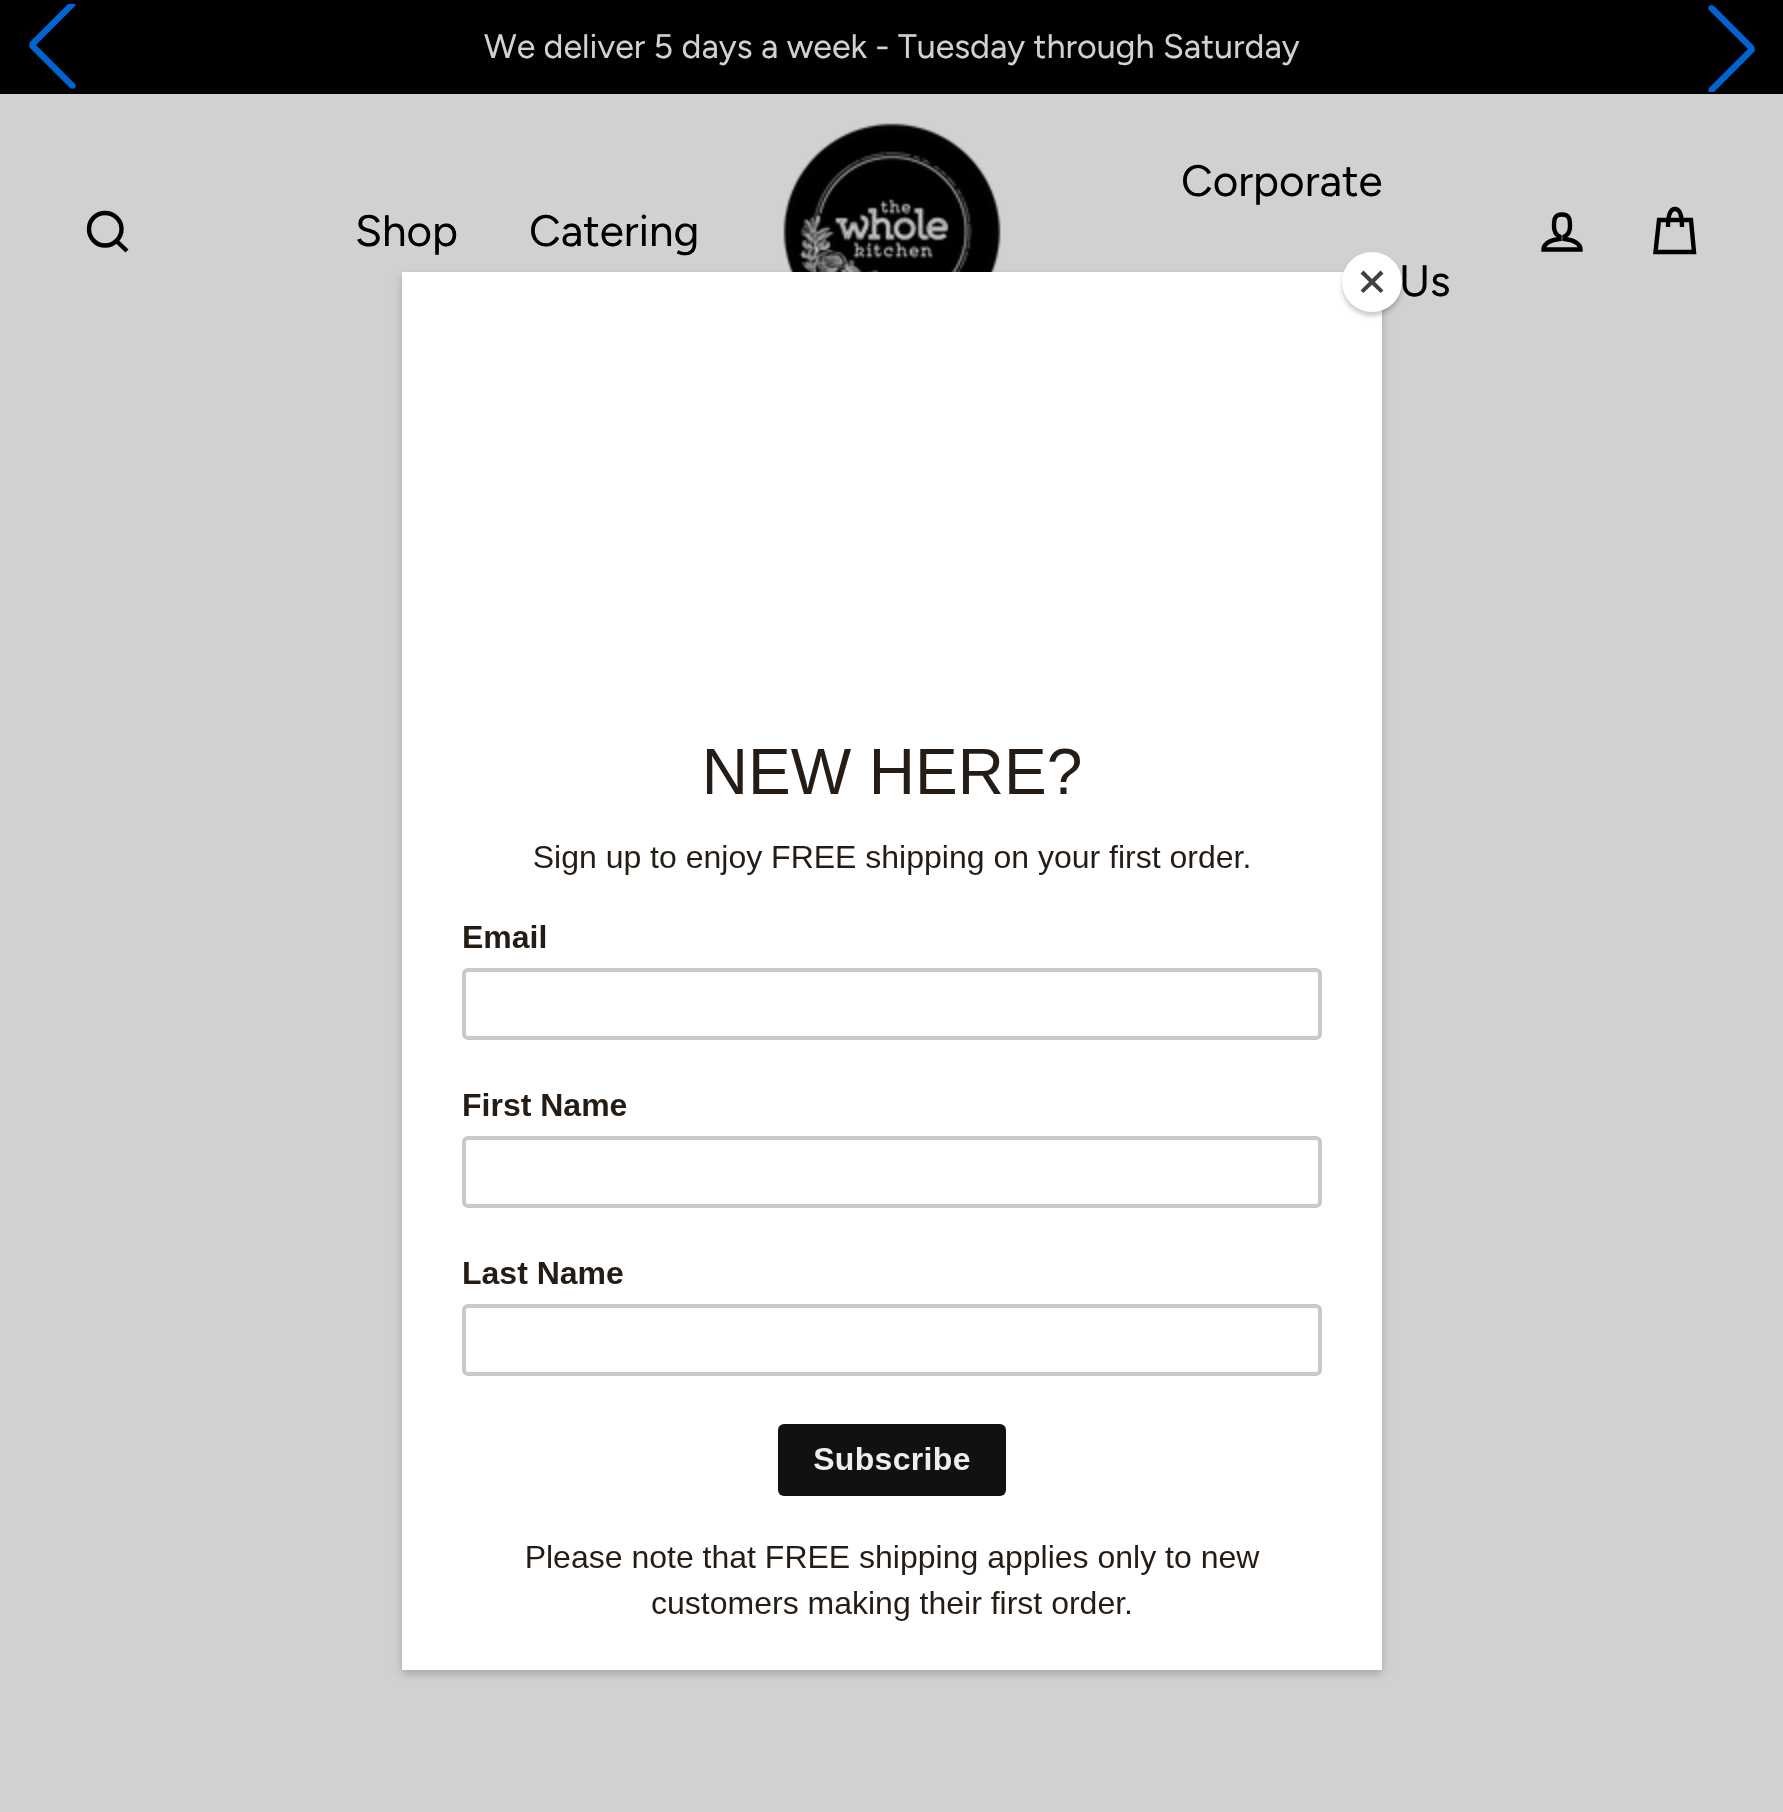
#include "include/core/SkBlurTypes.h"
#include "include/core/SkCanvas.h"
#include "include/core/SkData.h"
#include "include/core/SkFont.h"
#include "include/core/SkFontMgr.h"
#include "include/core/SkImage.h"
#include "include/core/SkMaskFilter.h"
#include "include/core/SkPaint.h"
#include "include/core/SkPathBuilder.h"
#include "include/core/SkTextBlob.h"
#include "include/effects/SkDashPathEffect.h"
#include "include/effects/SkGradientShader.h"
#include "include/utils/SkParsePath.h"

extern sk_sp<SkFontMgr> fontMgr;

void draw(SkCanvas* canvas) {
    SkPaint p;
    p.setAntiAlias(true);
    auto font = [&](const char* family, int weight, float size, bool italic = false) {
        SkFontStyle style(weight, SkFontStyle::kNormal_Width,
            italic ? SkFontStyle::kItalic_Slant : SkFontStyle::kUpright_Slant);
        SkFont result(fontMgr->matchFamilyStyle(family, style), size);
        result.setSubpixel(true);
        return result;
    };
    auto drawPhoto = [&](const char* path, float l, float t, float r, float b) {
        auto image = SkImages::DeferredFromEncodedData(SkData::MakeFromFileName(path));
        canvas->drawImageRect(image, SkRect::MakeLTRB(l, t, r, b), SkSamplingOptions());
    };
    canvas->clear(0xFFD1D1D1);
    p.setColor(0xFF000000);
    canvas->drawRect(SkRect::MakeLTRB(0, 0, 1783, 94), p);
    canvas->save();
    canvas->clipRect(SkRect::MakeLTRB(8, 4, 96, 92));
    p.setColor(0xFF0064D1);
    canvas->drawPath(SkPathBuilder().moveTo(75, 2).cubicTo(76, 3, 76, 5, 75, 6).lineTo(36, 45).lineTo(75, 84).cubicTo(76, 85, 76, 87, 75, 88).cubicTo(73, 89, 71, 89, 70, 88).lineTo(30, 48).cubicTo(29, 47, 29, 44, 30, 42).lineTo(70, 2).cubicTo(71, 1, 73, 1, 75, 2).close().detach(), p);
    canvas->restore();
    auto font1 = font("Figtree", 400, 34);
    p.setColor(0xFFD1D1D1);
    canvas->drawString("We deliver 5 days a week - Tuesday through Saturday", 484, 58, font1, p);
    canvas->save();
    canvas->clipRect(SkRect::MakeLTRB(1688, 4, 1776, 92));
    p.setColor(0xFF0064D1);
    canvas->drawPath(SkPathBuilder().moveTo(1709, 92).cubicTo(1708, 91, 1708, 89, 1709, 88).lineTo(1748, 49).lineTo(1709, 10).cubicTo(1708, 9, 1708, 7, 1709, 6).cubicTo(1711, 5, 1713, 5, 1714, 6).lineTo(1754, 46).cubicTo(1755, 48, 1755, 51, 1754, 52).lineTo(1714, 92).cubicTo(1713, 94, 1711, 94, 1709, 92).close().detach(), p);
    canvas->restore();
    p.setStyle(SkPaint::kStroke_Style);
    p.setStrokeWidth(4.4f);
    p.setColor(0xFF000000);
    canvas->drawPath(SkPathBuilder().moveTo(121.5f, 229).cubicTo(121.5f, 238, 114, 245.5f, 105, 245.5f).cubicTo(96, 245.5f, 89, 238, 89, 229).cubicTo(89, 220, 96, 213, 105, 213).cubicTo(114, 213, 121.5f, 220, 121.5f, 229).close().moveTo(127, 251).lineTo(116.5f, 241).detach(), p);
    auto font2 = font("Figtree", 400, 44);
    p.setStyle(SkPaint::kFill_Style);
    canvas->drawString("Shop", 355, 246, font2, p);
    canvas->drawString("Catering", 529, 246, font2, p);
    drawPhoto("media/1.png", 783, 123, 1001, 272);
    canvas->drawString("Corporate", 1181, 196, font2, p);
    canvas->drawString("Us", 1399, 296, font2, p);
    p.setStyle(SkPaint::kStroke_Style);
    canvas->drawPath(SkPathBuilder().moveTo(1564.5f, 239).lineTo(1564.5f, 236.5f).cubicTo(1567.5f, 235, 1570, 231, 1570, 226.5f).cubicTo(1570, 220, 1570, 214.5f, 1562, 214.5f).cubicTo(1554, 214.5f, 1554, 220, 1554, 226.5f).cubicTo(1554, 231, 1556.5f, 235, 1559.5f, 236.5f).lineTo(1559.5f, 239).cubicTo(1550.5f, 239.5f, 1543.5f, 244, 1543.5f, 249.5f).lineTo(1580.5f, 249.5f).cubicTo(1580.5f, 244, 1573.5f, 239.5f, 1564.5f, 239).close().detach(), p);
    canvas->drawPath(SkPathBuilder().moveTo(1668, 227).cubicTo(1668, 213, 1671, 209, 1675, 209).cubicTo(1679, 209, 1682, 213, 1682, 227).moveTo(1659, 220).lineTo(1691, 220).lineTo(1694, 252).lineTo(1655.5f, 252).close().detach(), p);
    p.setStyle(SkPaint::kFill_Style);
    p.setColor(0x33000000);
    p.setMaskFilter(SkMaskFilter::MakeBlur(kNormal_SkBlurStyle, 4));
    canvas->drawRect(SkRect::MakeLTRB(402, 276, 1382, 1674), p);
    p.setMaskFilter(nullptr);
    drawPhoto("media/2.png", 402, 272, 1382, 1670);
    p.setMaskFilter(SkMaskFilter::MakeBlur(kNormal_SkBlurStyle, 2));
    canvas->drawRoundRect(SkRect::MakeLTRB(1342, 256, 1402, 316), 30, 30, p);
    p.setMaskFilter(nullptr);
    p.setColor(0xFFFFFFFF);
    canvas->drawCircle(1372, 282, 30, p);
    p.setColor(0xFF414141);
    canvas->drawPath(SkPathBuilder().moveTo(1380.5f, 270.5f).lineTo(1383.5f, 273.5f).lineTo(1363.5f, 293).lineTo(1360.5f, 290.5f).close().detach(), p);
    canvas->drawPath(SkPathBuilder().moveTo(1360.5f, 273.5f).lineTo(1363.5f, 270.5f).lineTo(1383.5f, 290.5f).lineTo(1380.5f, 293).close().detach(), p);
}
